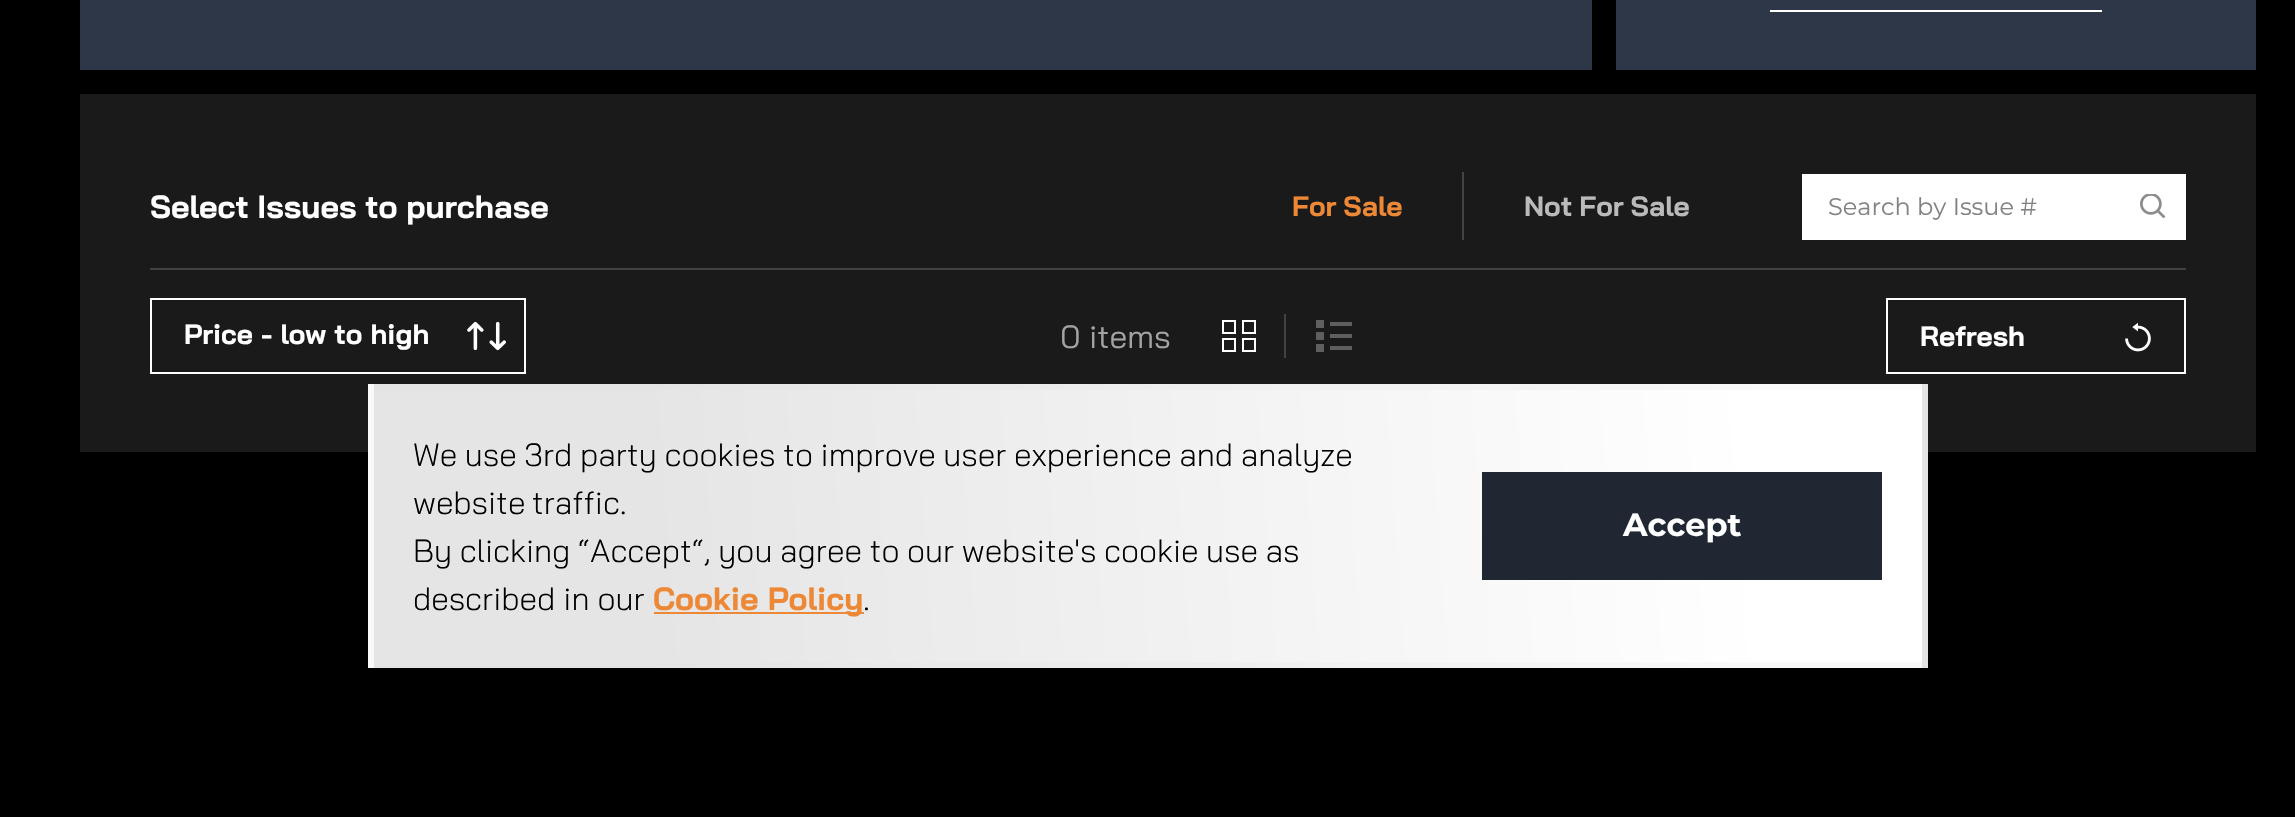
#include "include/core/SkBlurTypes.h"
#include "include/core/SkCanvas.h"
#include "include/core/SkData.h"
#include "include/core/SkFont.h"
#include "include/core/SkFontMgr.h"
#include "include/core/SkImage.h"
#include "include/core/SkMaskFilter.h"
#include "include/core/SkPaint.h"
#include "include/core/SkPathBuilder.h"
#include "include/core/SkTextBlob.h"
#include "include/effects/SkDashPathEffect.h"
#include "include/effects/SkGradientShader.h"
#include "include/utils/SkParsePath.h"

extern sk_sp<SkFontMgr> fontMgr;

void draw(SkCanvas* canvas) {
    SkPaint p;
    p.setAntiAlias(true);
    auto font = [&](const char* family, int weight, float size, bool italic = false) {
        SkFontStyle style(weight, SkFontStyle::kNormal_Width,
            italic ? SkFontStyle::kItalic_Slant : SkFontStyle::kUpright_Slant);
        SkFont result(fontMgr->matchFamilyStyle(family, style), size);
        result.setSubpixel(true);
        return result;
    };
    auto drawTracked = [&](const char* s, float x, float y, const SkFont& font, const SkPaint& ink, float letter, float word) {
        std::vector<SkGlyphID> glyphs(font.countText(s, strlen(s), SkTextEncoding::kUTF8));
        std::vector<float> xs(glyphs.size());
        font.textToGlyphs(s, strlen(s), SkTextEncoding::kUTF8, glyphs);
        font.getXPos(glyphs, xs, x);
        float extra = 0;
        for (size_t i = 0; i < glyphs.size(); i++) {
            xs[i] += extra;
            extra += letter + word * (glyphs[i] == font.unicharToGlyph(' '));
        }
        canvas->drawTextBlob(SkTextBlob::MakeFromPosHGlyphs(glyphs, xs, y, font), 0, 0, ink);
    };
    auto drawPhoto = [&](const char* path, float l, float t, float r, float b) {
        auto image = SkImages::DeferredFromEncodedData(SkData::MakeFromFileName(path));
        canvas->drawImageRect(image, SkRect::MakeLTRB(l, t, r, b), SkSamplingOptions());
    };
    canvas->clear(0xFF000000);
    {
        const struct { float l, t, r, b; SkColor color; } items[] = {
            {80, 0, 1592, 70, 0xFF2D3748},
            {1616, 0, 2256, 70, 0xFF2D3748},
            {1770, 10, 2102, 12, 0xFFFFFFFF},
            {80, 94, 2256, 452, 0xFF1A1A1A},
            {150, 268, 2186, 270, 0xFF3F4346},
        };
        for (auto [l, t, r, b, color] : items) {
            p.setColor(color);
            canvas->drawRect(SkRect::MakeLTRB(l, t, r, b), p);
        }
    }
    auto font1 = font("Bai Jamjuree", 700, 32);
    p.setColor(0xFFFFFFFF);
    drawTracked("Select Issues to purchase", 150, 218, font1, p, 0, -0.5f);
    auto font2 = font("Bai Jamjuree", 700, 28);
    p.setColor(0xFFED8936);
    drawTracked("For Sale", 1292, 216, font2, p, 0, -1);
    p.setColor(0xFF434343);
    canvas->drawRect(SkRect::MakeLTRB(1462, 172, 1464, 240), p);
    p.setColor(0xFFBABABA);
    drawTracked("Not For Sale", 1524, 216, font2, p, 0, -1);
    p.setColor(0xFFFFFFFF);
    canvas->drawRect(SkRect::MakeLTRB(1802, 174, 2186, 240), p);
    auto font3 = font("Montserrat", 400, 24);
    p.setColor(0xFF828282);
    canvas->drawString("Search by Issue #", 1828, 215, font3, p);
    drawPhoto("media/1.png", 2140, 194, 2166, 219);
    p.setStyle(SkPaint::kStroke_Style);
    p.setStrokeWidth(2);
    p.setColor(0xFFFFFFFF);
    canvas->drawRect(SkRect::MakeLTRB(151, 299, 525, 373), p);
    p.setStyle(SkPaint::kFill_Style);
    canvas->drawString("Price - low to high", 184, 344, font2, p);
    drawPhoto("media/2.png", 467, 321, 506, 351);
    auto font4 = font("Bai Jamjuree", 400, 32);
    p.setColor(0xFFA3A3A3);
    canvas->drawString("0 items", 1060, 348, font4, p);
    drawPhoto("media/3.png", 1222, 320, 1256, 352);
    {
        const struct { float l, t, r, b; SkColor color; } items[] = {
            {1284, 314, 1286, 358, 0xFF434343},
            {1316, 320, 1324, 328, 0xFF5F5F5F},
            {1316, 332, 1324, 340, 0xFF5F5F5F},
            {1316, 344, 1324, 352, 0xFF5F5F5F},
            {1330, 322, 1352, 326, 0xFF5F5F5F},
            {1330, 334, 1352, 338, 0xFF5F5F5F},
            {1330, 346, 1352, 350, 0xFF5F5F5F},
        };
        for (auto [l, t, r, b, color] : items) {
            p.setColor(color);
            canvas->drawRect(SkRect::MakeLTRB(l, t, r, b), p);
        }
    }
    p.setStyle(SkPaint::kStroke_Style);
    p.setColor(0xFFFFFFFF);
    canvas->drawRect(SkRect::MakeLTRB(1887, 299, 2185, 373), p);
    p.setStyle(SkPaint::kFill_Style);
    canvas->drawString("Refresh", 1920, 346, font2, p);
    drawPhoto("media/4.png", 2125, 322, 2151, 352);
    {
        const SkColor colors[] = {0xFFFFFFFF, 0xFFE5E5E5};
        const float stops[] = {0.11f, 0.82f};
        const SkPoint ends[] = {{380, 198}, {-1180, 310}};
        p.setShader(SkGradientShader::MakeLinear(ends, colors, stops, 2, SkTileMode::kClamp));
        p.setAlpha(255);
    }
    canvas->drawRect(SkRect::MakeLTRB(368, 384, 374, 390), p);
    {
        const SkColor colors[] = {0xFFFFFFFF, 0xFFE5E5E5};
        const float stops[] = {0.11f, 0.82f};
        const SkPoint ends[] = {{1928, 198}, {368, 310}};
        p.setShader(SkGradientShader::MakeLinear(ends, colors, stops, 2, SkTileMode::kClamp));
        p.setAlpha(255);
    }
    canvas->drawRect(SkRect::MakeLTRB(374, 384, 1922, 390), p);
    {
        const SkColor colors[] = {0xFFFFFFFF, 0xFFE5E5E5};
        const float stops[] = {0.11f, 0.82f};
        const SkPoint ends[] = {{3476, 198}, {1916, 310}};
        p.setShader(SkGradientShader::MakeLinear(ends, colors, stops, 2, SkTileMode::kClamp));
        p.setAlpha(255);
    }
    canvas->drawRect(SkRect::MakeLTRB(1922, 384, 1928, 390), p);
    {
        const SkColor colors[] = {0xFFFFFFFF, 0xFFE5E5E5};
        const float stops[] = {0.11f, 0.82f};
        const SkPoint ends[] = {{380, 470}, {-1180, 582}};
        p.setShader(SkGradientShader::MakeLinear(ends, colors, stops, 2, SkTileMode::kClamp));
        p.setAlpha(255);
    }
    canvas->drawRect(SkRect::MakeLTRB(368, 390, 374, 662), p);
    {
        const SkColor colors[] = {0xFFFFFFFF, 0xFFE5E5E5};
        const float stops[] = {0.11f, 0.82f};
        const SkPoint ends[] = {{1928, 470}, {368, 582}};
        p.setShader(SkGradientShader::MakeLinear(ends, colors, stops, 2, SkTileMode::kClamp));
        p.setAlpha(255);
    }
    canvas->drawRect(SkRect::MakeLTRB(374, 390, 1922, 662), p);
    {
        const SkColor colors[] = {0xFFFFFFFF, 0xFFE5E5E5};
        const float stops[] = {0.11f, 0.82f};
        const SkPoint ends[] = {{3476, 470}, {1916, 582}};
        p.setShader(SkGradientShader::MakeLinear(ends, colors, stops, 2, SkTileMode::kClamp));
        p.setAlpha(255);
    }
    canvas->drawRect(SkRect::MakeLTRB(1922, 390, 1928, 662), p);
    {
        const SkColor colors[] = {0xFFFFFFFF, 0xFFE5E5E5};
        const float stops[] = {0.11f, 0.82f};
        const SkPoint ends[] = {{380, 742}, {-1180, 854}};
        p.setShader(SkGradientShader::MakeLinear(ends, colors, stops, 2, SkTileMode::kClamp));
        p.setAlpha(255);
    }
    canvas->drawRect(SkRect::MakeLTRB(368, 662, 374, 668), p);
    {
        const SkColor colors[] = {0xFFFFFFFF, 0xFFE5E5E5};
        const float stops[] = {0.11f, 0.82f};
        const SkPoint ends[] = {{1928, 742}, {368, 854}};
        p.setShader(SkGradientShader::MakeLinear(ends, colors, stops, 2, SkTileMode::kClamp));
        p.setAlpha(255);
    }
    canvas->drawRect(SkRect::MakeLTRB(374, 662, 1922, 668), p);
    {
        const SkColor colors[] = {0xFFFFFFFF, 0xFFE5E5E5};
        const float stops[] = {0.11f, 0.82f};
        const SkPoint ends[] = {{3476, 742}, {1916, 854}};
        p.setShader(SkGradientShader::MakeLinear(ends, colors, stops, 2, SkTileMode::kClamp));
        p.setAlpha(255);
    }
    canvas->drawRect(SkRect::MakeLTRB(1922, 662, 1928, 668), p);
    p.setStyle(SkPaint::kStroke_Style);
    p.setStrokeWidth(6);
    p.setShader(nullptr);
    p.setColor(0x33E0E0E0);
    canvas->drawRect(SkRect::MakeLTRB(371, 387, 1925, 665), p);
    auto font5 = font("Bai Jamjuree", 300, 32);
    p.setStyle(SkPaint::kFill_Style);
    p.setColor(0xFF000000);
    drawTracked("We use 3rd party cookies to improve user experience and analyze", 413, 466, font5, p, 0, -0.5f);
    drawTracked("website traffic.", 413, 514, font5, p, 0, -2);
    drawTracked("By clicking “Accept“, you agree to our website's cookie use as", 413, 562, font5, p, 0, -0.5f);
    canvas->drawString("described in our", 413, 610, font5, p);
    p.setColor(0xFFED8936);
    canvas->drawRect(SkRect::MakeLTRB(654, 612, 864, 614), p);
    canvas->drawString("Cookie Policy", 653, 610, font1, p);
    p.setColor(0xFF000000);
    canvas->drawString(".", 863, 610, font5, p);
    p.setColor(0xFF202733);
    canvas->drawRect(SkRect::MakeLTRB(1482, 472, 1882, 580), p);
    auto font6 = font("Montserrat", 700, 32);
    p.setColor(0xFFFFFFFF);
    canvas->drawString("Accept", 1623, 536, font6, p);
}
